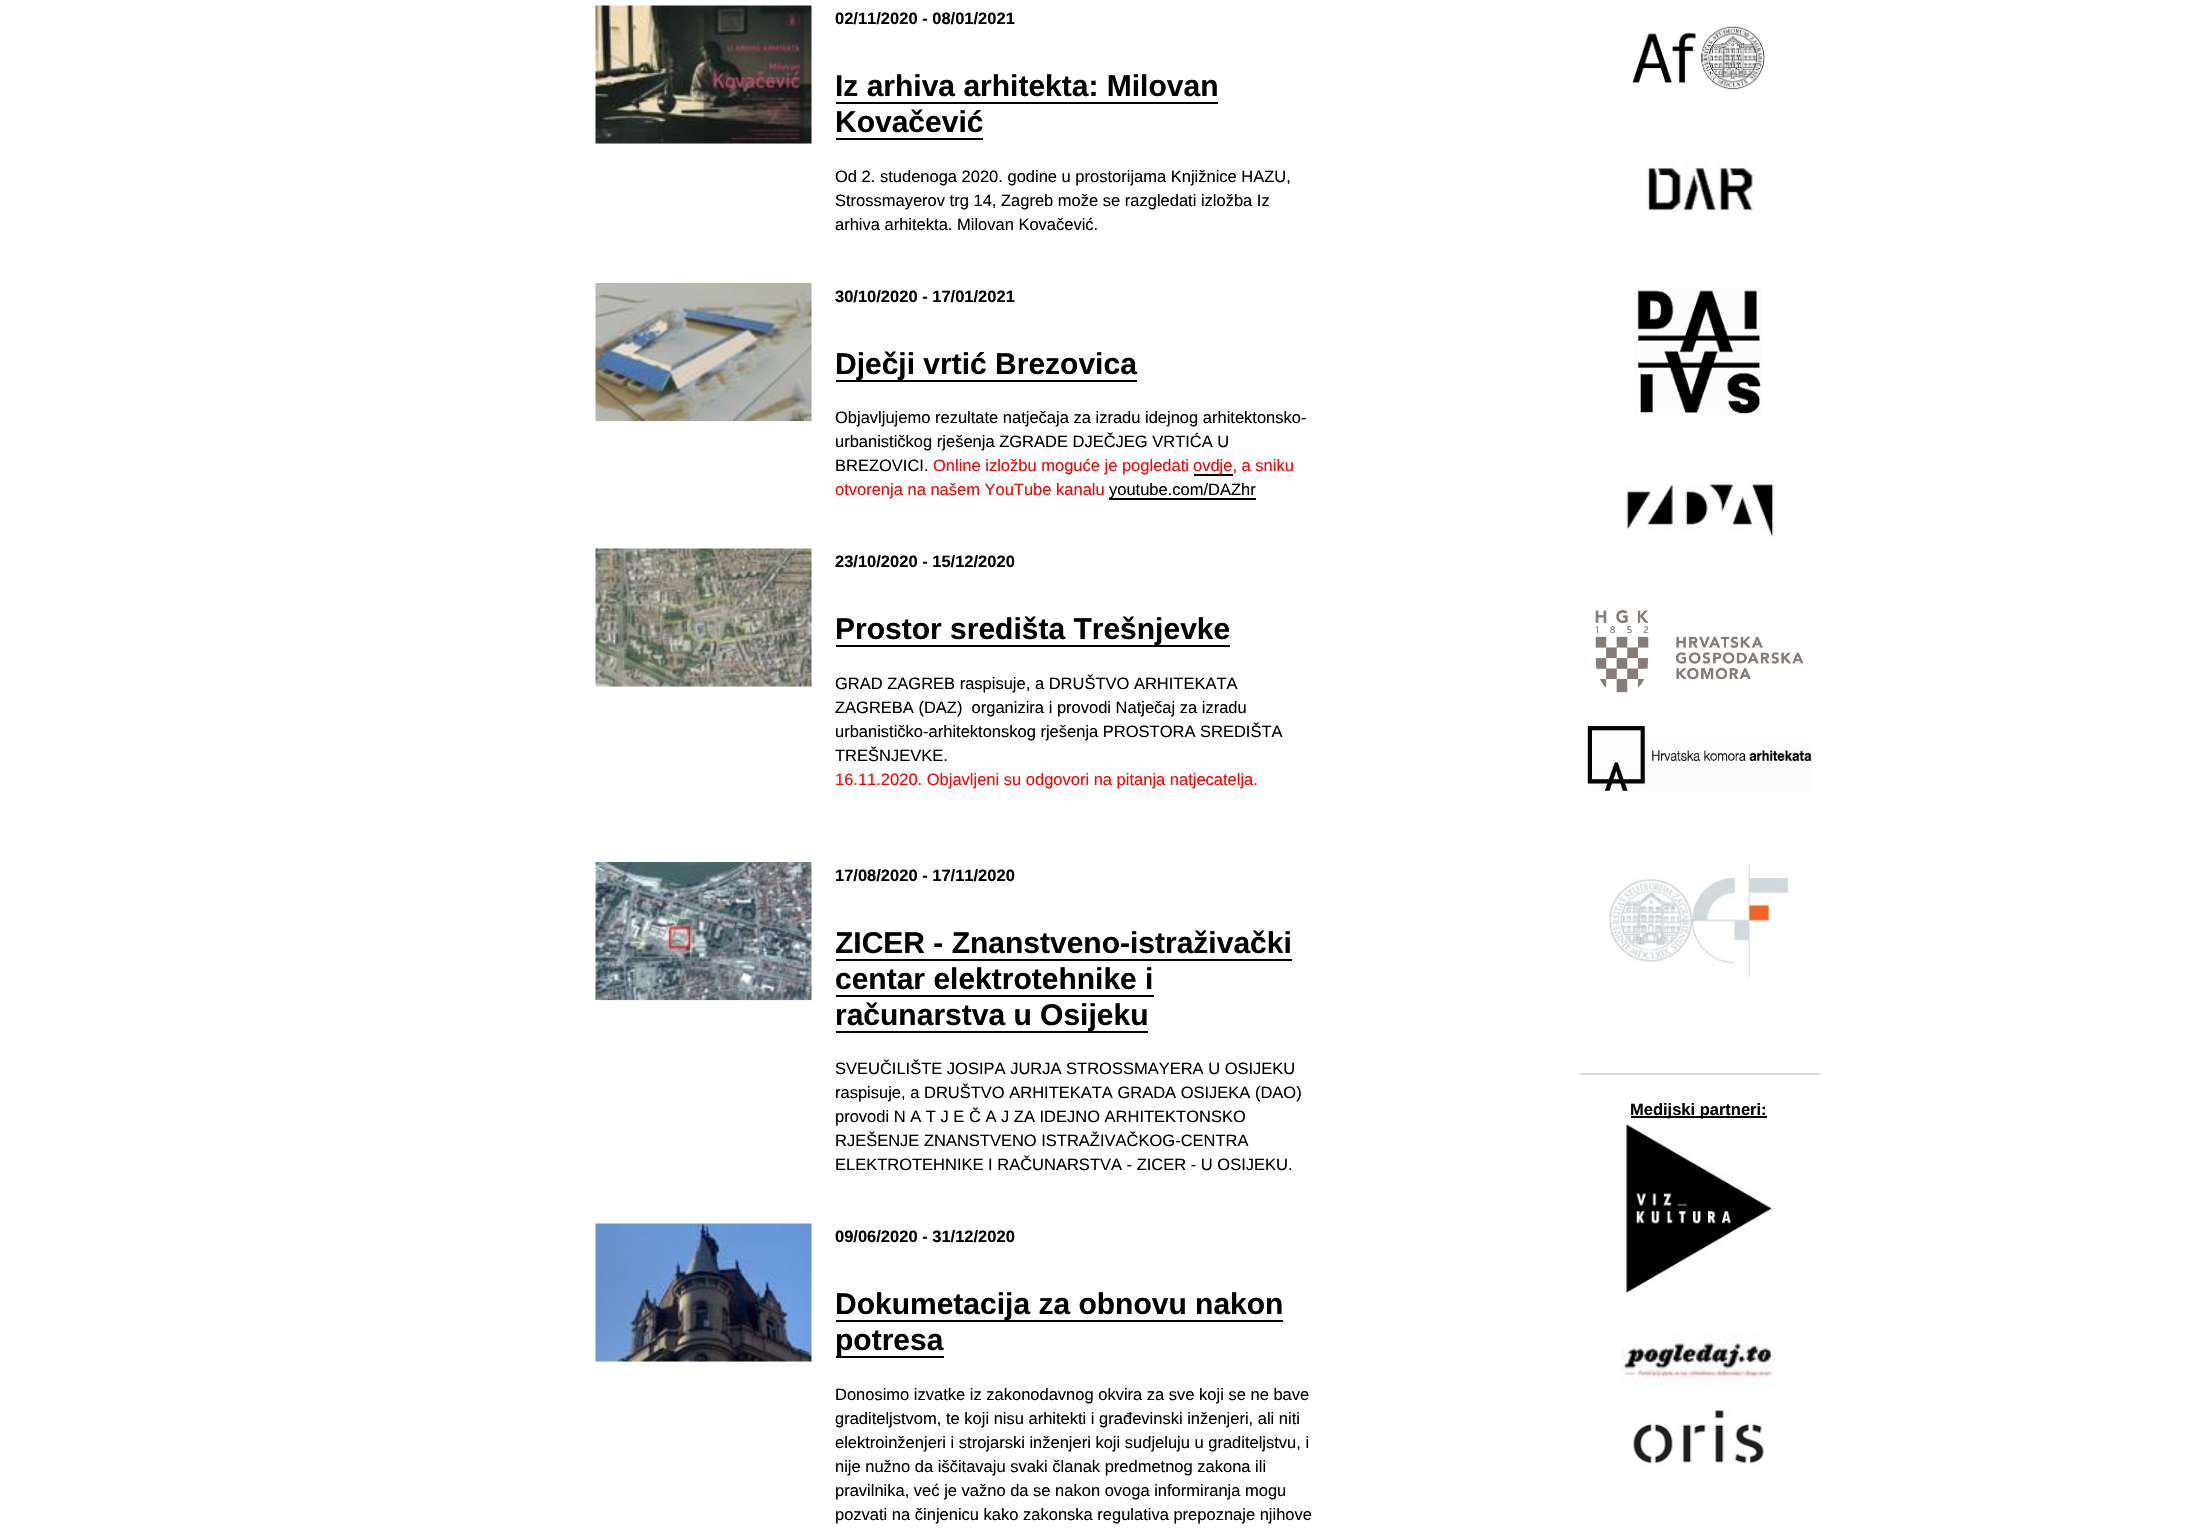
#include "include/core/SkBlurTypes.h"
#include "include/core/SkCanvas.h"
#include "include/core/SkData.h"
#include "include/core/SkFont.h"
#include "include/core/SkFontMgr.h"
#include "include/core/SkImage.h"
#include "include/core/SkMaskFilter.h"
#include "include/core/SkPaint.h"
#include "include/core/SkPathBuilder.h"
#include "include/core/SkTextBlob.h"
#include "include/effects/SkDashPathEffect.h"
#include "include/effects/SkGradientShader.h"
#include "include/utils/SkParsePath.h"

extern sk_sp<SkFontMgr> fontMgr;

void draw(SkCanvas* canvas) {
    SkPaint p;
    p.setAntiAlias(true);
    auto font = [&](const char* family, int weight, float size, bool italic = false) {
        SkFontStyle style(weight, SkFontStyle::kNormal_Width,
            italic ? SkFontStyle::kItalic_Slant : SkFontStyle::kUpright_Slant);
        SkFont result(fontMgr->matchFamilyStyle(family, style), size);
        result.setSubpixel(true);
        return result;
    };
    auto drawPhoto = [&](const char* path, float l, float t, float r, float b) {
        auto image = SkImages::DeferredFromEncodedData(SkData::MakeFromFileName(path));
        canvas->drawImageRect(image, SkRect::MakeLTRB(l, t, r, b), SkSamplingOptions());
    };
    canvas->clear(0xFFFFFFFF);
    p.setColor(0xFFF6F6F6);
    canvas->drawRect(SkRect::MakeLTRB(596, 6, 812, 144), p);
    drawPhoto("media/1.png", 595, 5, 812, 144);
    auto font1 = font("Liberation Sans", 700, 16.5f);
    p.setColor(0xFF000000);
    canvas->drawString("02/11/2020 - 08/01/2021", 835, 24, font1, p);
    auto font2 = font("Liberation Sans", 700, 30);
    canvas->drawString("Iz arhiva arhitekta: Milovan", 835, 96, font2, p);
    canvas->drawRect(SkRect::MakeLTRB(836, 102, 1218, 104), p);
    canvas->drawString("Kovačević", 835, 132, font2, p);
    canvas->drawRect(SkRect::MakeLTRB(836, 138, 983, 140), p);
    auto font3 = font("Liberation Sans", 400, 16.5f);
    {
        const struct { const char* s; float x, y; } items[] = {
            {"Od 2. studenoga 2020. godine u prostorijama Knjižnice HAZU,", 835, 182},
            {"Strossmayerov trg 14, Zagreb može se razgledati izložba Iz", 835, 206},
            {"arhiva arhitekta. Milovan Kovačević.", 835, 230},
        };
        for (auto [s, x, y] : items) {
            canvas->drawString(s, x, y, font3, p);
        }
    }
    p.setColor(0xFFF6F6F6);
    canvas->drawRect(SkRect::MakeLTRB(596, 284, 812, 422), p);
    drawPhoto("media/2.png", 595, 283, 812, 421);
    p.setColor(0xFF000000);
    canvas->drawString("30/10/2020 - 17/01/2021", 835, 302, font1, p);
    canvas->drawRect(SkRect::MakeLTRB(836, 380, 1137, 382), p);
    canvas->drawString("Dječji vrtić Brezovica", 835, 374, font2, p);
    {
        const struct { const char* s; float x, y; } items[] = {
            {"Objavljujemo rezultate natječaja za izradu idejnog arhitektonsko-", 835, 423},
            {"urbanističkog rješenja ZGRADE DJEČJEG VRTIĆA U", 835, 447},
            {"BREZOVICI.", 835, 471},
        };
        for (auto [s, x, y] : items) {
            canvas->drawString(s, x, y, font3, p);
        }
    }
    p.setColor(0xFFFF0000);
    canvas->drawString("Online izložbu moguće je pogledati", 933, 471, font3, p);
    p.setColor(0xFF000000);
    canvas->drawRect(SkRect::MakeLTRB(1194, 474, 1233, 476), p);
    p.setColor(0xFFFF0000);
    canvas->drawString("ovdje, a sniku", 1193, 471, font3, p);
    canvas->drawString("otvorenja na našem YouTube kanalu", 835, 495, font3, p);
    p.setColor(0xFF000000);
    canvas->drawRect(SkRect::MakeLTRB(1109, 498, 1256, 500), p);
    canvas->drawString("youtube.com/DAZhr", 1109, 495, font3, p);
    p.setColor(0xFFF6F6F6);
    canvas->drawRect(SkRect::MakeLTRB(596, 549, 812, 687), p);
    drawPhoto("media/3.png", 595, 548, 812, 687);
    p.setColor(0xFF000000);
    canvas->drawString("23/10/2020 - 15/12/2020", 835, 567, font1, p);
    canvas->drawRect(SkRect::MakeLTRB(836, 645, 1230, 647), p);
    canvas->drawString("Prostor središta Trešnjevke", 835, 639, font2, p);
    {
        const struct { const char* s; float x, y; } items[] = {
            {"GRAD ZAGREB raspisuje, a DRUŠTVO ARHITEKATA", 835, 689},
            {"ZAGREBA (DAZ)  organizira i provodi Natječaj za izradu", 835, 713},
            {"urbanističko-arhitektonskog rješenja PROSTORA SREDIŠTA", 835, 737},
            {"TREŠNJEVKE.", 835, 761},
        };
        for (auto [s, x, y] : items) {
            canvas->drawString(s, x, y, font3, p);
        }
    }
    p.setColor(0xFFFF0000);
    canvas->drawString("16.11.2020. Objavljeni su odgovori na pitanja natjecatelja.", 835, 785, font3, p);
    p.setColor(0xFFF6F6F6);
    canvas->drawRect(SkRect::MakeLTRB(596, 863, 812, 1001), p);
    drawPhoto("media/4.png", 595, 862, 812, 1000);
    p.setColor(0xFF000000);
    canvas->drawString("17/08/2020 - 17/11/2020", 835, 881, font1, p);
    canvas->drawString("ZICER - Znanstveno-istraživački", 835, 953, font2, p);
    canvas->drawRect(SkRect::MakeLTRB(836, 959, 1292, 961), p);
    canvas->drawString("centar elektrotehnike i", 835, 989, font2, p);
    canvas->drawRect(SkRect::MakeLTRB(836, 995, 1154, 997), p);
    canvas->drawRect(SkRect::MakeLTRB(836, 1031, 1148, 1033), p);
    canvas->drawString("računarstva u Osijeku", 835, 1025, font2, p);
    {
        const struct { const char* s; float x, y; } items[] = {
            {"SVEUČILIŠTE JOSIPA JURJA STROSSMAYERA U OSIJEKU", 835, 1074},
            {"raspisuje, a DRUŠTVO ARHITEKATA GRADA OSIJEKA (DAO)", 835, 1098},
            {"provodi N A T J E Č A J ZA IDEJNO ARHITEKTONSKO", 835, 1122},
            {"RJEŠENJE ZNANSTVENO ISTRAŽIVAČKOG-CENTRA", 835, 1146},
            {"ELEKTROTEHNIKE I RAČUNARSTVA - ZICER - U OSIJEKU.", 835, 1170},
        };
        for (auto [s, x, y] : items) {
            canvas->drawString(s, x, y, font3, p);
        }
    }
    p.setColor(0xFFF6F6F6);
    canvas->drawRect(SkRect::MakeLTRB(596, 1224, 812, 1362), p);
    drawPhoto("media/5.png", 595, 1223, 812, 1362);
    p.setColor(0xFF000000);
    canvas->drawString("09/06/2020 - 31/12/2020", 835, 1242, font1, p);
    canvas->drawRect(SkRect::MakeLTRB(836, 1320, 1283, 1322), p);
    canvas->drawString("Dokumetacija za obnovu nakon", 835, 1314, font2, p);
    canvas->drawRect(SkRect::MakeLTRB(836, 1356, 944, 1358), p);
    canvas->drawString("potresa", 835, 1350, font2, p);
    {
        const struct { const char* s; float x, y; } items[] = {
            {"Donosimo izvatke iz zakonodavnog okvira za sve koji se ne bave", 835, 1400},
            {"graditeljstvom, te koji nisu arhitekti i građevinski inženjeri, ali niti", 835, 1424},
            {"elektroinženjeri i strojarski inženjeri koji sudjeluju u graditeljstvu, i", 835, 1448},
            {"nije nužno da iščitavaju svaki članak predmetnog zakona ili", 835, 1472},
            {"pravilnika, već je važno da se nakon ovoga informiranja mogu", 835, 1496},
            {"pozvati na činjenicu kako zakonska regulativa prepoznaje njihove", 835, 1520},
        };
        for (auto [s, x, y] : items) {
            canvas->drawString(s, x, y, font3, p);
        }
    }
    drawPhoto("media/6.png", 1632, 26, 1765, 90);
    drawPhoto("media/7.png", 1647, 160, 1756, 214);
    drawPhoto("media/8.png", 1634, 288, 1762, 415);
    drawPhoto("media/9.png", 1626, 484, 1775, 537);
    drawPhoto("media/10.png", 1595, 610, 1804, 693);
    drawPhoto("media/11.png", 1587, 725, 1812, 792);
    drawPhoto("media/12.png", 1609, 863, 1789, 978);
    p.setColor(0xFFDDDDDD);
    canvas->drawRect(SkRect::MakeLTRB(1580, 1073, 1820, 1075), p);
    p.setColor(0xFF000000);
    canvas->drawRect(SkRect::MakeLTRB(1631, 1116, 1767, 1118), p);
    canvas->drawString("Medijski partneri:", 1630, 1115, font1, p);
    drawPhoto("media/13.png", 1625, 1121, 1775, 1293);
    drawPhoto("media/14.png", 1620, 1334, 1776, 1387);
    drawPhoto("media/15.png", 1633, 1409, 1764, 1466);
}
